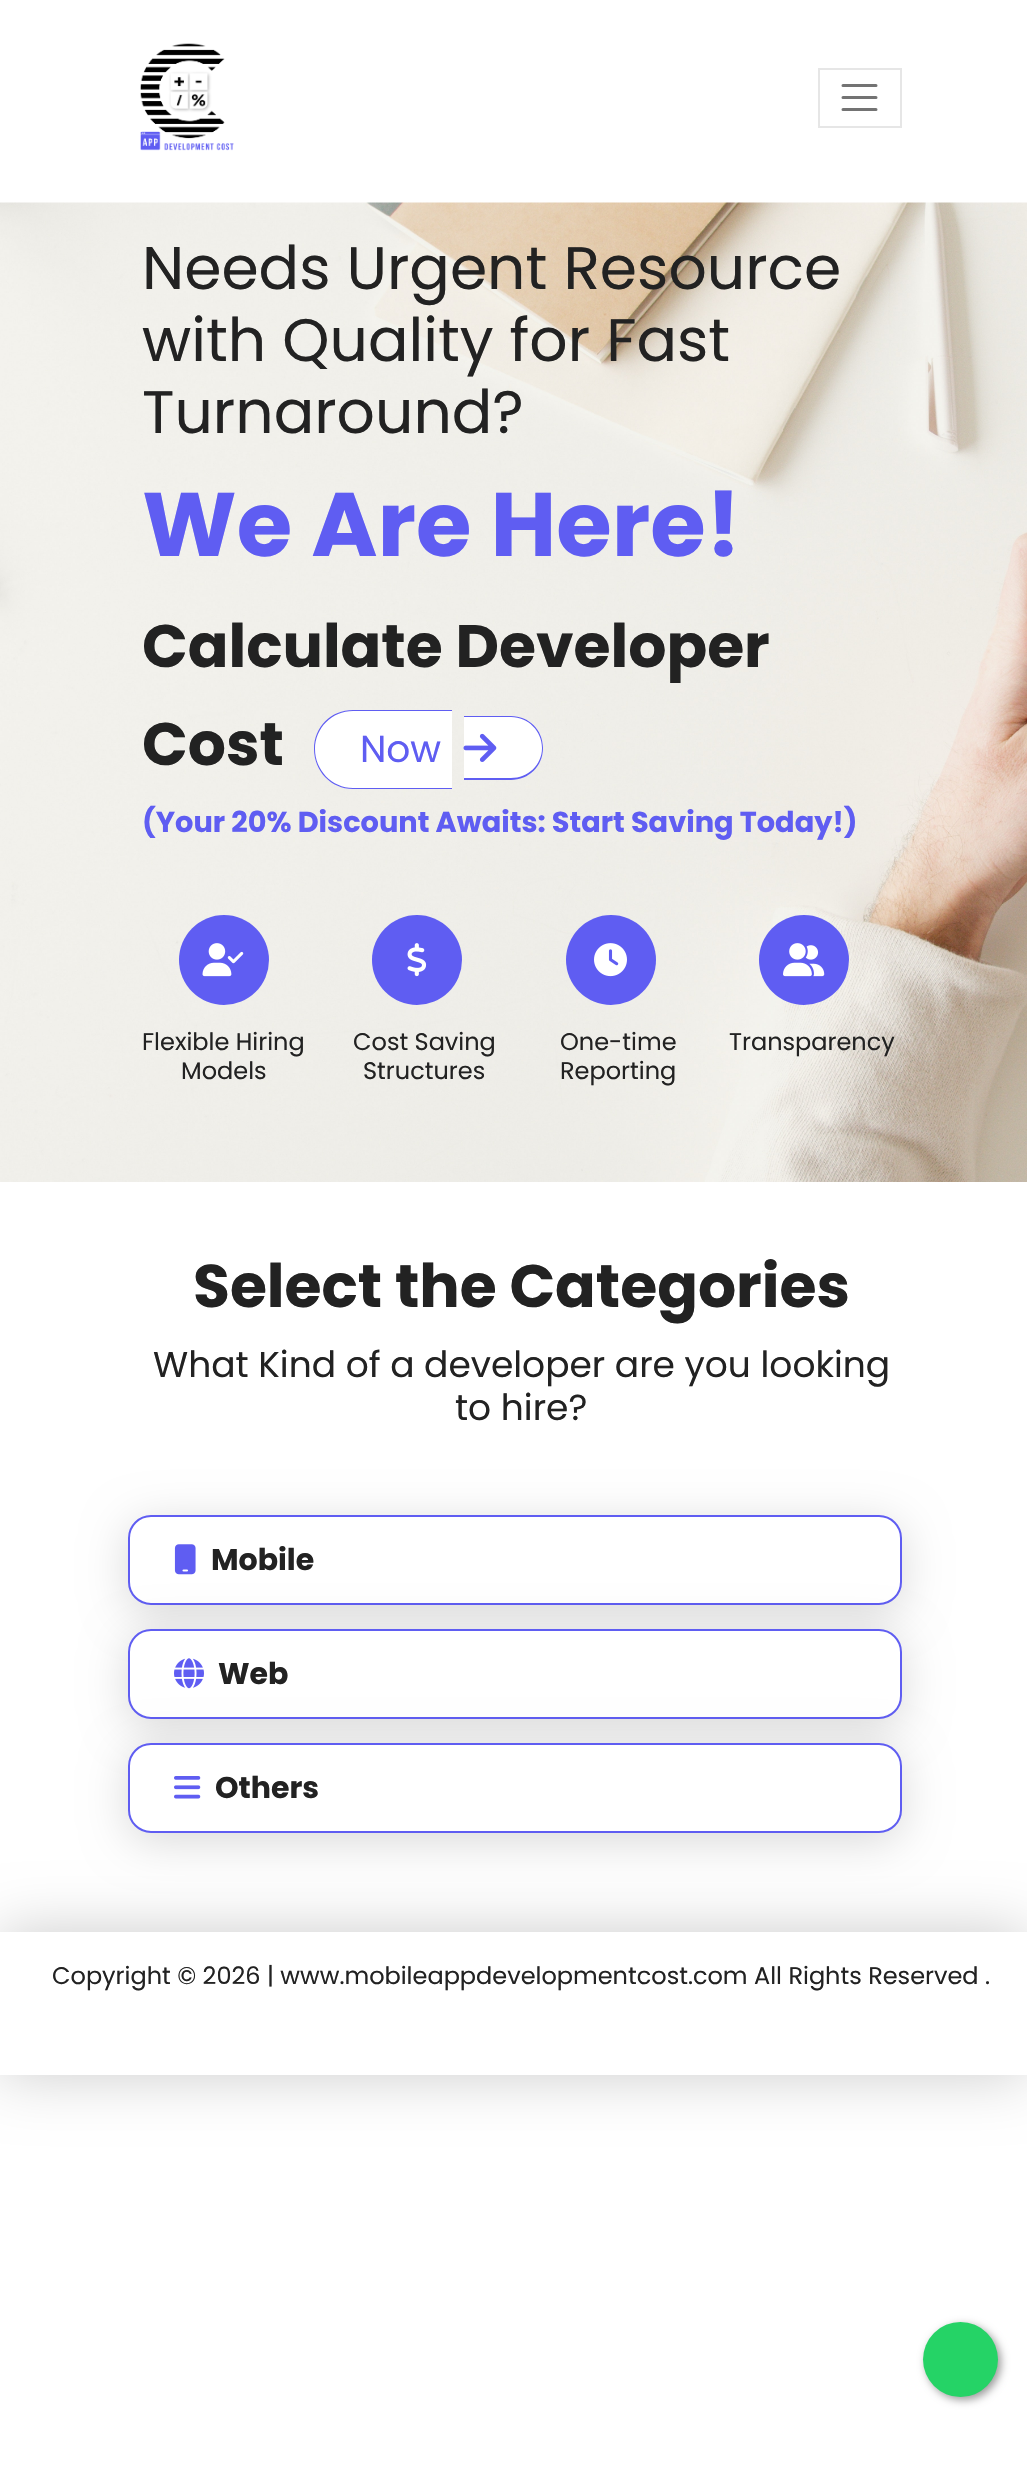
#include "include/core/SkBlurTypes.h"
#include "include/core/SkCanvas.h"
#include "include/core/SkData.h"
#include "include/core/SkFont.h"
#include "include/core/SkFontMgr.h"
#include "include/core/SkImage.h"
#include "include/core/SkMaskFilter.h"
#include "include/core/SkPaint.h"
#include "include/core/SkPathBuilder.h"
#include "include/core/SkTextBlob.h"
#include "include/effects/SkDashPathEffect.h"
#include "include/effects/SkGradientShader.h"
#include "include/utils/SkParsePath.h"

extern sk_sp<SkFontMgr> fontMgr;

void draw(SkCanvas* canvas) {
    SkPaint p;
    p.setAntiAlias(true);
    auto font = [&](const char* family, int weight, float size, bool italic = false) {
        SkFontStyle style(weight, SkFontStyle::kNormal_Width,
            italic ? SkFontStyle::kItalic_Slant : SkFontStyle::kUpright_Slant);
        SkFont result(fontMgr->matchFamilyStyle(family, style), size);
        result.setSubpixel(true);
        return result;
    };
    auto drawPhoto = [&](const char* path, float l, float t, float r, float b) {
        auto image = SkImages::DeferredFromEncodedData(SkData::MakeFromFileName(path));
        canvas->drawImageRect(image, SkRect::MakeLTRB(l, t, r, b), SkSamplingOptions());
    };
    canvas->clear(0xFFFFFFFF);
    drawPhoto("media/1.png", 140, 43, 234, 151);
    p.setStyle(SkPaint::kStroke_Style);
    p.setStrokeWidth(2);
    p.setColor(0xFFE6E6E6);
    canvas->drawRect(SkRect::MakeLTRB(819, 69, 901, 127), p);
    p.setStrokeWidth(3);
    p.setStrokeCap(SkPaint::kRound_Cap);
    p.setColor(0xFF737373);
    canvas->drawPath(SkPathBuilder().moveTo(843, 85.5f).lineTo(876, 85.5f).moveTo(843, 97.5f).lineTo(876, 97.5f).moveTo(843, 109.5f).lineTo(876, 109.5f).detach(), p);
    drawPhoto("media/2.png", 0, 202, 1027, 1182);
    auto font1 = font("Poppins", 400, 60);
    p.setStyle(SkPaint::kFill_Style);
    p.setColor(0xFF222222);
    {
        const struct { const char* s; float x, y; } items[] = {
            {"Needs Urgent Resource", 142, 289},
            {"with Quality for Fast", 142, 361},
            {"Turnaround?", 142, 433},
        };
        for (auto [s, x, y] : items) {
            canvas->drawString(s, x, y, font1, p);
        }
    }
    auto font2 = font("Poppins", 700, 90);
    p.setColor(0xFF5F5DF2);
    canvas->drawString("We Are Here!", 142, 556, font2, p);
    auto font3 = font("Poppins", 700, 60);
    p.setColor(0xFF222222);
    canvas->drawString("Calculate Developer", 142, 667, font3, p);
    canvas->drawString("Cost", 142, 765, font3, p);
    p.setColor(0xFFFFFFFF);
    canvas->drawPath(SkPathBuilder().moveTo(353.5f, 710).lineTo(452, 710).lineTo(452, 789).lineTo(353.5f, 789).cubicTo(331.5f, 789, 314, 771.5f, 314, 749.5f).cubicTo(314, 727.5f, 331.5f, 710, 353.5f, 710).close().detach(), p);
    p.setColor(0xFF5F5DF2);
    canvas->drawPath(SkPathBuilder(SkPathFillType::kEvenOdd).moveTo(353, 710).lineTo(452, 710).lineTo(452, 789).lineTo(353, 789).cubicTo(331, 789, 314, 771, 314, 749).cubicTo(314, 727, 331, 710, 353, 710).close().moveTo(353, 711).lineTo(452, 711).lineTo(452, 788).lineTo(353, 788).cubicTo(332, 788, 315, 770, 315, 749).cubicTo(315, 728, 332, 711, 353, 711).close().detach(), p);
    p.setColor(0xFFFFFFFF);
    canvas->drawPath(SkPathBuilder().moveTo(464, 716).lineTo(511, 716).cubicTo(528.5f, 716, 543, 730.5f, 543, 748).cubicTo(543, 765.5f, 528.5f, 780, 511, 780).lineTo(464, 780).close().detach(), p);
    p.setColor(0xFF5F5DF2);
    canvas->drawPath(SkPathBuilder(SkPathFillType::kEvenOdd).moveTo(464, 716).lineTo(511, 716).cubicTo(529, 716, 543, 730, 543, 748).cubicTo(543, 766, 529, 780, 511, 780).lineTo(464, 780).close().moveTo(464, 717).lineTo(511, 717).cubicTo(528, 717, 542, 731, 542, 748).cubicTo(542, 765, 528, 778, 511, 778).lineTo(464, 778).close().detach(), p);
    auto font4 = font("Poppins", 400, 37.5f);
    canvas->drawString("Now", 360, 762, font4, p);
    drawPhoto("media/3.png", 463, 733, 497, 762);
    auto font5 = font("Poppins", 700, 28.8f);
    canvas->drawString("(Your 20% Discount Awaits: Start Saving Today!)", 142, 832, font5, p);
    canvas->drawCircle(224, 960, 45, p);
    drawPhoto("media/4.png", 202, 943, 244, 977);
    auto font6 = font("Poppins", 400, 24);
    p.setColor(0xFF222222);
    canvas->drawString("Flexible Hiring", 142, 1050, font6, p);
    canvas->drawString("Models", 181, 1079, font6, p);
    p.setColor(0xFF5F5DF2);
    canvas->drawCircle(417, 960, 45, p);
    drawPhoto("media/5.png", 407, 943, 427, 977);
    p.setColor(0xFF222222);
    canvas->drawString("Cost Saving", 353, 1050, font6, p);
    canvas->drawString("Structures", 363, 1079, font6, p);
    p.setColor(0xFF5F5DF2);
    canvas->drawCircle(611, 960, 45, p);
    drawPhoto("media/6.png", 594, 943, 627, 977);
    p.setColor(0xFF222222);
    canvas->drawString("One-time", 560, 1050, font6, p);
    canvas->drawString("Reporting", 560, 1079, font6, p);
    p.setColor(0xFF5F5DF2);
    canvas->drawCircle(804, 960, 45, p);
    drawPhoto("media/7.png", 783, 943, 825, 977);
    p.setColor(0xFF222222);
    canvas->drawString("Transparency", 729, 1050, font6, p);
    canvas->drawString("Select the Categories", 193, 1307, font3, p);
    auto font7 = font("Poppins", 400, 36);
    canvas->drawString("What Kind of a developer are you looking", 153, 1377, font7, p);
    canvas->drawString("to hire?", 455, 1420, font7, p);
    p.setColor(0x26000000);
    p.setMaskFilter(SkMaskFilter::MakeBlur(kNormal_SkBlurStyle, 22.5f));
    canvas->drawRoundRect(SkRect::MakeLTRB(128, 1523, 902, 1613), 23, 23, p);
    p.setMaskFilter(nullptr);
    p.setColor(0xFFFFFFFF);
    canvas->drawRoundRect(SkRect::MakeLTRB(129, 1516, 901, 1604), 22, 22, p);
    p.setStyle(SkPaint::kStroke_Style);
    p.setStrokeWidth(2);
    p.setStrokeCap(SkPaint::kButt_Cap);
    p.setColor(0xFF5F5DF2);
    canvas->drawRoundRect(SkRect::MakeLTRB(129, 1516, 901, 1604), 22, 22, p);
    drawPhoto("media/8.png", 174, 1544, 196, 1575);
    auto font8 = font("Poppins", 700, 30);
    p.setStyle(SkPaint::kFill_Style);
    p.setColor(0xFF222222);
    canvas->drawString("Mobile", 211, 1570, font8, p);
    p.setColor(0x26000000);
    p.setMaskFilter(SkMaskFilter::MakeBlur(kNormal_SkBlurStyle, 22.5f));
    canvas->drawRoundRect(SkRect::MakeLTRB(128, 1637, 902, 1727), 23, 23, p);
    p.setMaskFilter(nullptr);
    p.setColor(0xFFFFFFFF);
    canvas->drawRoundRect(SkRect::MakeLTRB(129, 1630, 901, 1718), 22, 22, p);
    p.setStyle(SkPaint::kStroke_Style);
    p.setColor(0xFF5F5DF2);
    canvas->drawRoundRect(SkRect::MakeLTRB(129, 1630, 901, 1718), 22, 22, p);
    drawPhoto("media/9.png", 174, 1658, 204, 1689);
    p.setStyle(SkPaint::kFill_Style);
    p.setColor(0xFF222222);
    canvas->drawString("Web", 218, 1684, font8, p);
    p.setColor(0x26000000);
    p.setMaskFilter(SkMaskFilter::MakeBlur(kNormal_SkBlurStyle, 22.5f));
    canvas->drawRoundRect(SkRect::MakeLTRB(128, 1751, 902, 1841), 23, 23, p);
    p.setMaskFilter(nullptr);
    p.setColor(0xFFFFFFFF);
    canvas->drawRoundRect(SkRect::MakeLTRB(129, 1744, 901, 1832), 22, 22, p);
    p.setStyle(SkPaint::kStroke_Style);
    p.setColor(0xFF5F5DF2);
    canvas->drawRoundRect(SkRect::MakeLTRB(129, 1744, 901, 1832), 22, 22, p);
    drawPhoto("media/10.png", 174, 1776, 201, 1799);
    p.setStyle(SkPaint::kFill_Style);
    p.setColor(0xFF222222);
    canvas->drawString("Others", 215, 1798, font8, p);
    canvas->save();
    canvas->clipPath(SkPathBuilder(SkPathFillType::kEvenOdd).moveTo(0, 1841).lineTo(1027, 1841).lineTo(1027, 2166).lineTo(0, 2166).close().moveTo(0, 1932).lineTo(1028, 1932).lineTo(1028, 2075).lineTo(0, 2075).close().detach(), true);
    p.setColor(0x33000000);
    p.setMaskFilter(SkMaskFilter::MakeBlur(kNormal_SkBlurStyle, 30));
    canvas->drawRect(SkRect::MakeLTRB(0, 1932, 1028, 2075), p);
    p.setMaskFilter(nullptr);
    canvas->restore();
    p.setColor(0xFF222222);
    canvas->drawString("Copyright © 2026 | www.mobileappdevelopmentcost.com All Rights Reserved .", 52, 1984, font6, p);
    p.setColor(0x66000000);
    p.setMaskFilter(SkMaskFilter::MakeBlur(kNormal_SkBlurStyle, 4.5f));
    canvas->drawRoundRect(SkRect::MakeLTRB(926, 2325, 1001, 2400), 37.5f, 37.5f, p);
    p.setMaskFilter(nullptr);
    p.setColor(0xFF25D366);
    canvas->drawCircle(960.5f, 2359.5f, 37.5f, p);
}
